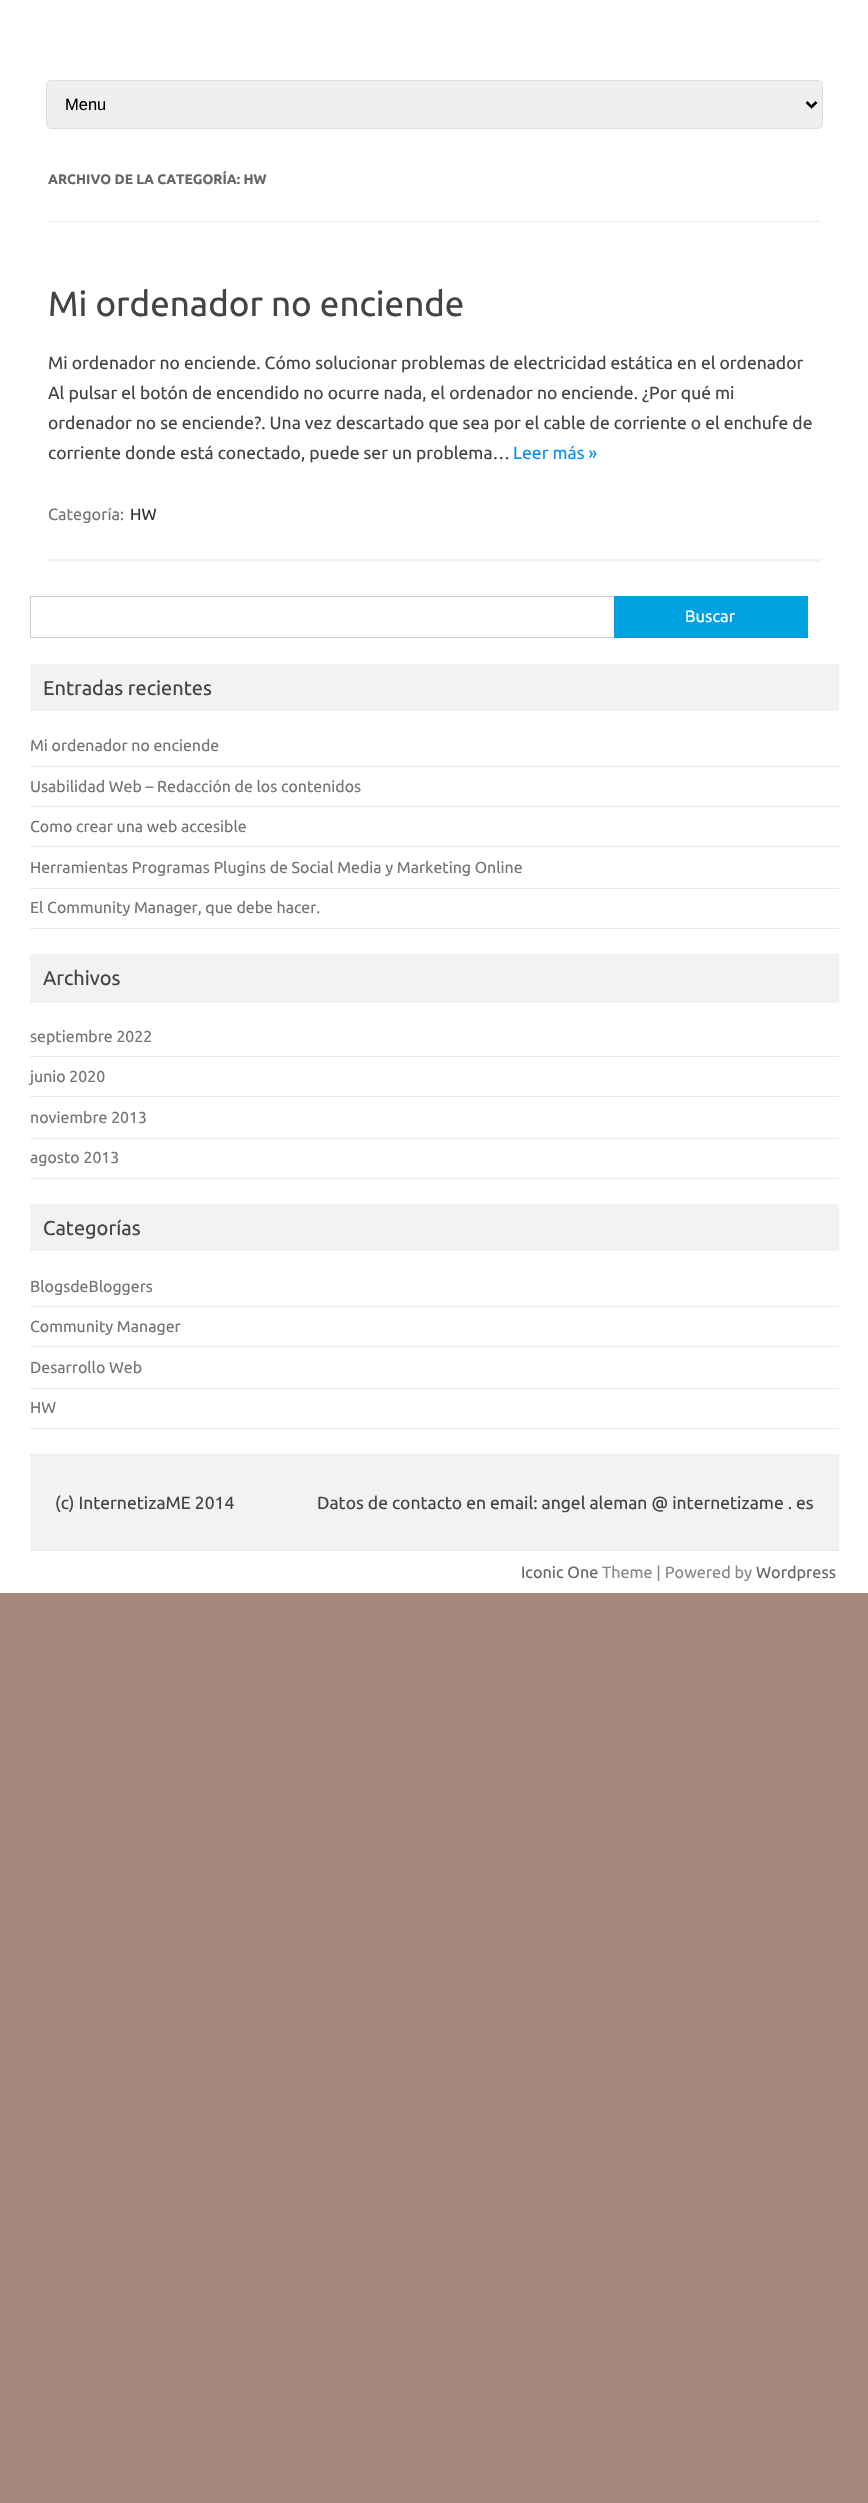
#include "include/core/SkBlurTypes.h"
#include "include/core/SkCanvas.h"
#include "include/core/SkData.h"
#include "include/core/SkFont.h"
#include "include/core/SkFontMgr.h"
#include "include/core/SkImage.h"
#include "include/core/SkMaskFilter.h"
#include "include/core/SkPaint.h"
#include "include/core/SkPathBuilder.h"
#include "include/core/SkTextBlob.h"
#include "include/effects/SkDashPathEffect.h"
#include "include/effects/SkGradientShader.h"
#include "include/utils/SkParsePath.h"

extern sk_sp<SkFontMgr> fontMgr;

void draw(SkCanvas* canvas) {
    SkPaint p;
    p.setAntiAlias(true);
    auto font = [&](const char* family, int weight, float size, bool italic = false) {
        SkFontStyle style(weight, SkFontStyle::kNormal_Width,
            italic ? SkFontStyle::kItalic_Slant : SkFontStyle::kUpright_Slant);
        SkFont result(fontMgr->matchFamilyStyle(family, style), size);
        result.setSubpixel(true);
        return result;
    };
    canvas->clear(0xFFA5877C);
    p.setColor(0xFFFFFFFF);
    canvas->drawRect(SkRect::MakeLTRB(0, 0, 868, 1593), p);
    p.setColor(0xFFEFEFEF);
    canvas->drawRoundRect(SkRect::MakeLTRB(46.5f, 80.5f, 822.5f, 128.5f), 4.5f, 4.5f, p);
    p.setStyle(SkPaint::kStroke_Style);
    p.setStrokeWidth(1);
    p.setColor(0xFFDDDDDD);
    canvas->drawRoundRect(SkRect::MakeLTRB(46.5f, 80.5f, 822.5f, 128.5f), 4.5f, 4.5f, p);
    p.setStrokeWidth(2.5f);
    p.setColor(0xFF000000);
    canvas->drawPath(SkPathBuilder().moveTo(806.5f, 102).lineTo(811.5f, 107).lineTo(816.5f, 102).detach(), p);
    auto font1 = font("Liberation Sans", 400, 16.5f);
    p.setStyle(SkPaint::kFill_Style);
    canvas->drawString("Menu", 65, 110, font1, p);
    p.setColor(0xFFEDEDED);
    canvas->drawRect(SkRect::MakeLTRB(48, 221, 821, 222), p);
    auto font2 = font("Ubuntu", 700, 13.75f);
    p.setColor(0xFF666666);
    canvas->drawString("ARCHIVO DE LA CATEGORÍA: HW", 48, 184, font2, p);
    p.setColor(0xFFF3F3F3);
    canvas->drawRect(SkRect::MakeLTRB(48, 559, 821, 562), p);
    auto font3 = font("Ubuntu", 400, 35);
    p.setColor(0xFF444444);
    canvas->drawString("Mi ordenador no enciende", 48, 316, font3, p);
    auto font4 = font("Ubuntu", 400, 17.5f);
    {
        const struct { const char* s; float x, y; } items[] = {
            {"Mi ordenador no enciende. Cómo solucionar problemas de electricidad estática en el ordenador", 48, 369},
            {"Al pulsar el botón de encendido no ocurre nada, el ordenador no enciende. ¿Por qué mi", 48, 399},
            {"ordenador no se enciende?. Una vez descartado que sea por el cable de corriente o el enchufe de", 48, 429},
            {"corriente donde está conectado, puede ser un problema…", 48, 459},
        };
        for (auto [s, x, y] : items) {
            canvas->drawString(s, x, y, font4, p);
        }
    }
    p.setColor(0xFF0B91EA);
    canvas->drawString("Leer más »", 513, 459, font4, p);
    auto font5 = font("Ubuntu", 400, 16.25f);
    p.setColor(0xFF757575);
    canvas->drawString("Categoría:", 48, 520, font5, p);
    p.setColor(0xFF333333);
    canvas->drawString("HW", 130, 520, font5, p);
    p.setStyle(SkPaint::kStroke_Style);
    p.setStrokeWidth(1);
    p.setColor(0xFFCCCCCC);
    canvas->drawRect(SkRect::MakeLTRB(30.5f, 596.5f, 614.5f, 637.5f), p);
    p.setStyle(SkPaint::kFill_Style);
    p.setColor(0xFF00A1E0);
    canvas->drawRect(SkRect::MakeLTRB(614, 596, 808, 638), p);
    auto font6 = font("Ubuntu", 400, 16.5f);
    p.setColor(0xFFFFFFFF);
    canvas->drawString("Buscar", 685, 622, font6, p);
    p.setColor(0xFFF2F2F2);
    canvas->drawRect(SkRect::MakeLTRB(30, 664, 839, 711), p);
    auto font7 = font("Ubuntu", 400, 20);
    p.setColor(0xFF444444);
    canvas->drawString("Entradas recientes", 43, 695, font7, p);
    p.setColor(0xFFE9E9E9);
    canvas->drawRect(SkRect::MakeLTRB(30, 766, 839, 767), p);
    auto font8 = font("Ubuntu", 400, 15.9f);
    p.setColor(0xFF757575);
    canvas->drawString("Mi ordenador no enciende", 30, 751, font8, p);
    p.setColor(0xFFE9E9E9);
    canvas->drawRect(SkRect::MakeLTRB(30, 806, 839, 807), p);
    p.setColor(0xFF757575);
    canvas->drawString("Usabilidad Web – Redacción de los contenidos", 30, 792, font8, p);
    p.setColor(0xFFE9E9E9);
    canvas->drawRect(SkRect::MakeLTRB(30, 846, 839, 847), p);
    p.setColor(0xFF757575);
    canvas->drawString("Como crear una web accesible", 30, 832, font8, p);
    p.setColor(0xFFE9E9E9);
    canvas->drawRect(SkRect::MakeLTRB(30, 888, 839, 889), p);
    p.setColor(0xFF757575);
    canvas->drawString("Herramientas Programas Plugins de Social Media y Marketing Online", 30, 873, font8, p);
    p.setColor(0xFFE9E9E9);
    canvas->drawRect(SkRect::MakeLTRB(30, 928, 839, 929), p);
    p.setColor(0xFF757575);
    canvas->drawString("El Community Manager, que debe hacer.", 30, 913, font8, p);
    p.setColor(0xFFF2F2F2);
    canvas->drawRect(SkRect::MakeLTRB(30, 954, 839, 1003), p);
    p.setColor(0xFF444444);
    canvas->drawString("Archivos", 43, 985, font7, p);
    p.setColor(0xFFE9E9E9);
    canvas->drawRect(SkRect::MakeLTRB(30, 1056, 839, 1057), p);
    p.setColor(0xFF757575);
    canvas->drawString("septiembre 2022", 30, 1042, font8, p);
    p.setColor(0xFFE9E9E9);
    canvas->drawRect(SkRect::MakeLTRB(30, 1096, 839, 1097), p);
    p.setColor(0xFF757575);
    canvas->drawString("junio 2020", 30, 1082, font8, p);
    p.setColor(0xFFE9E9E9);
    canvas->drawRect(SkRect::MakeLTRB(30, 1138, 839, 1139), p);
    p.setColor(0xFF757575);
    canvas->drawString("noviembre 2013", 30, 1123, font8, p);
    p.setColor(0xFFE9E9E9);
    canvas->drawRect(SkRect::MakeLTRB(30, 1178, 839, 1179), p);
    p.setColor(0xFF757575);
    canvas->drawString("agosto 2013", 30, 1163, font8, p);
    p.setColor(0xFFF2F2F2);
    canvas->drawRect(SkRect::MakeLTRB(30, 1204, 839, 1251), p);
    p.setColor(0xFF444444);
    canvas->drawString("Categorías", 43, 1235, font7, p);
    p.setColor(0xFFE9E9E9);
    canvas->drawRect(SkRect::MakeLTRB(30, 1306, 839, 1307), p);
    p.setColor(0xFF757575);
    canvas->drawString("BlogsdeBloggers", 30, 1292, font8, p);
    p.setColor(0xFFE9E9E9);
    canvas->drawRect(SkRect::MakeLTRB(30, 1346, 839, 1347), p);
    p.setColor(0xFF757575);
    canvas->drawString("Community Manager", 30, 1332, font8, p);
    p.setColor(0xFFE9E9E9);
    canvas->drawRect(SkRect::MakeLTRB(30, 1388, 839, 1389), p);
    p.setColor(0xFF757575);
    canvas->drawString("Desarrollo Web", 30, 1373, font8, p);
    p.setColor(0xFFE9E9E9);
    canvas->drawRect(SkRect::MakeLTRB(30, 1428, 839, 1429), p);
    p.setColor(0xFF757575);
    canvas->drawString("HW", 30, 1413, font8, p);
    {
        const struct { float l, t, r, b; SkColor color; } items[] = {
            {30, 1455, 839, 1550, 0xFFF2F2F2},
            {30, 1454, 839, 1455, 0xFFEDEDED},
            {30, 1550, 839, 1551, 0xFFE9E9E9},
        };
        for (auto [l, t, r, b, color] : items) {
            p.setColor(color);
            canvas->drawRect(SkRect::MakeLTRB(l, t, r, b), p);
        }
    }
    p.setColor(0xFF444444);
    canvas->drawString("(c) InternetizaME 2014", 55, 1509, font4, p);
    canvas->drawString("Datos de contacto en email: angel aleman @ internetizame . es", 317, 1509, font4, p);
    p.setColor(0xFF666666);
    canvas->drawString("Iconic One", 521, 1578, font5, p);
    p.setColor(0xFF888888);
    canvas->drawString("Theme | Powered by", 602, 1578, font5, p);
    p.setColor(0xFF666666);
    canvas->drawString("Wordpress", 756, 1578, font5, p);
}
